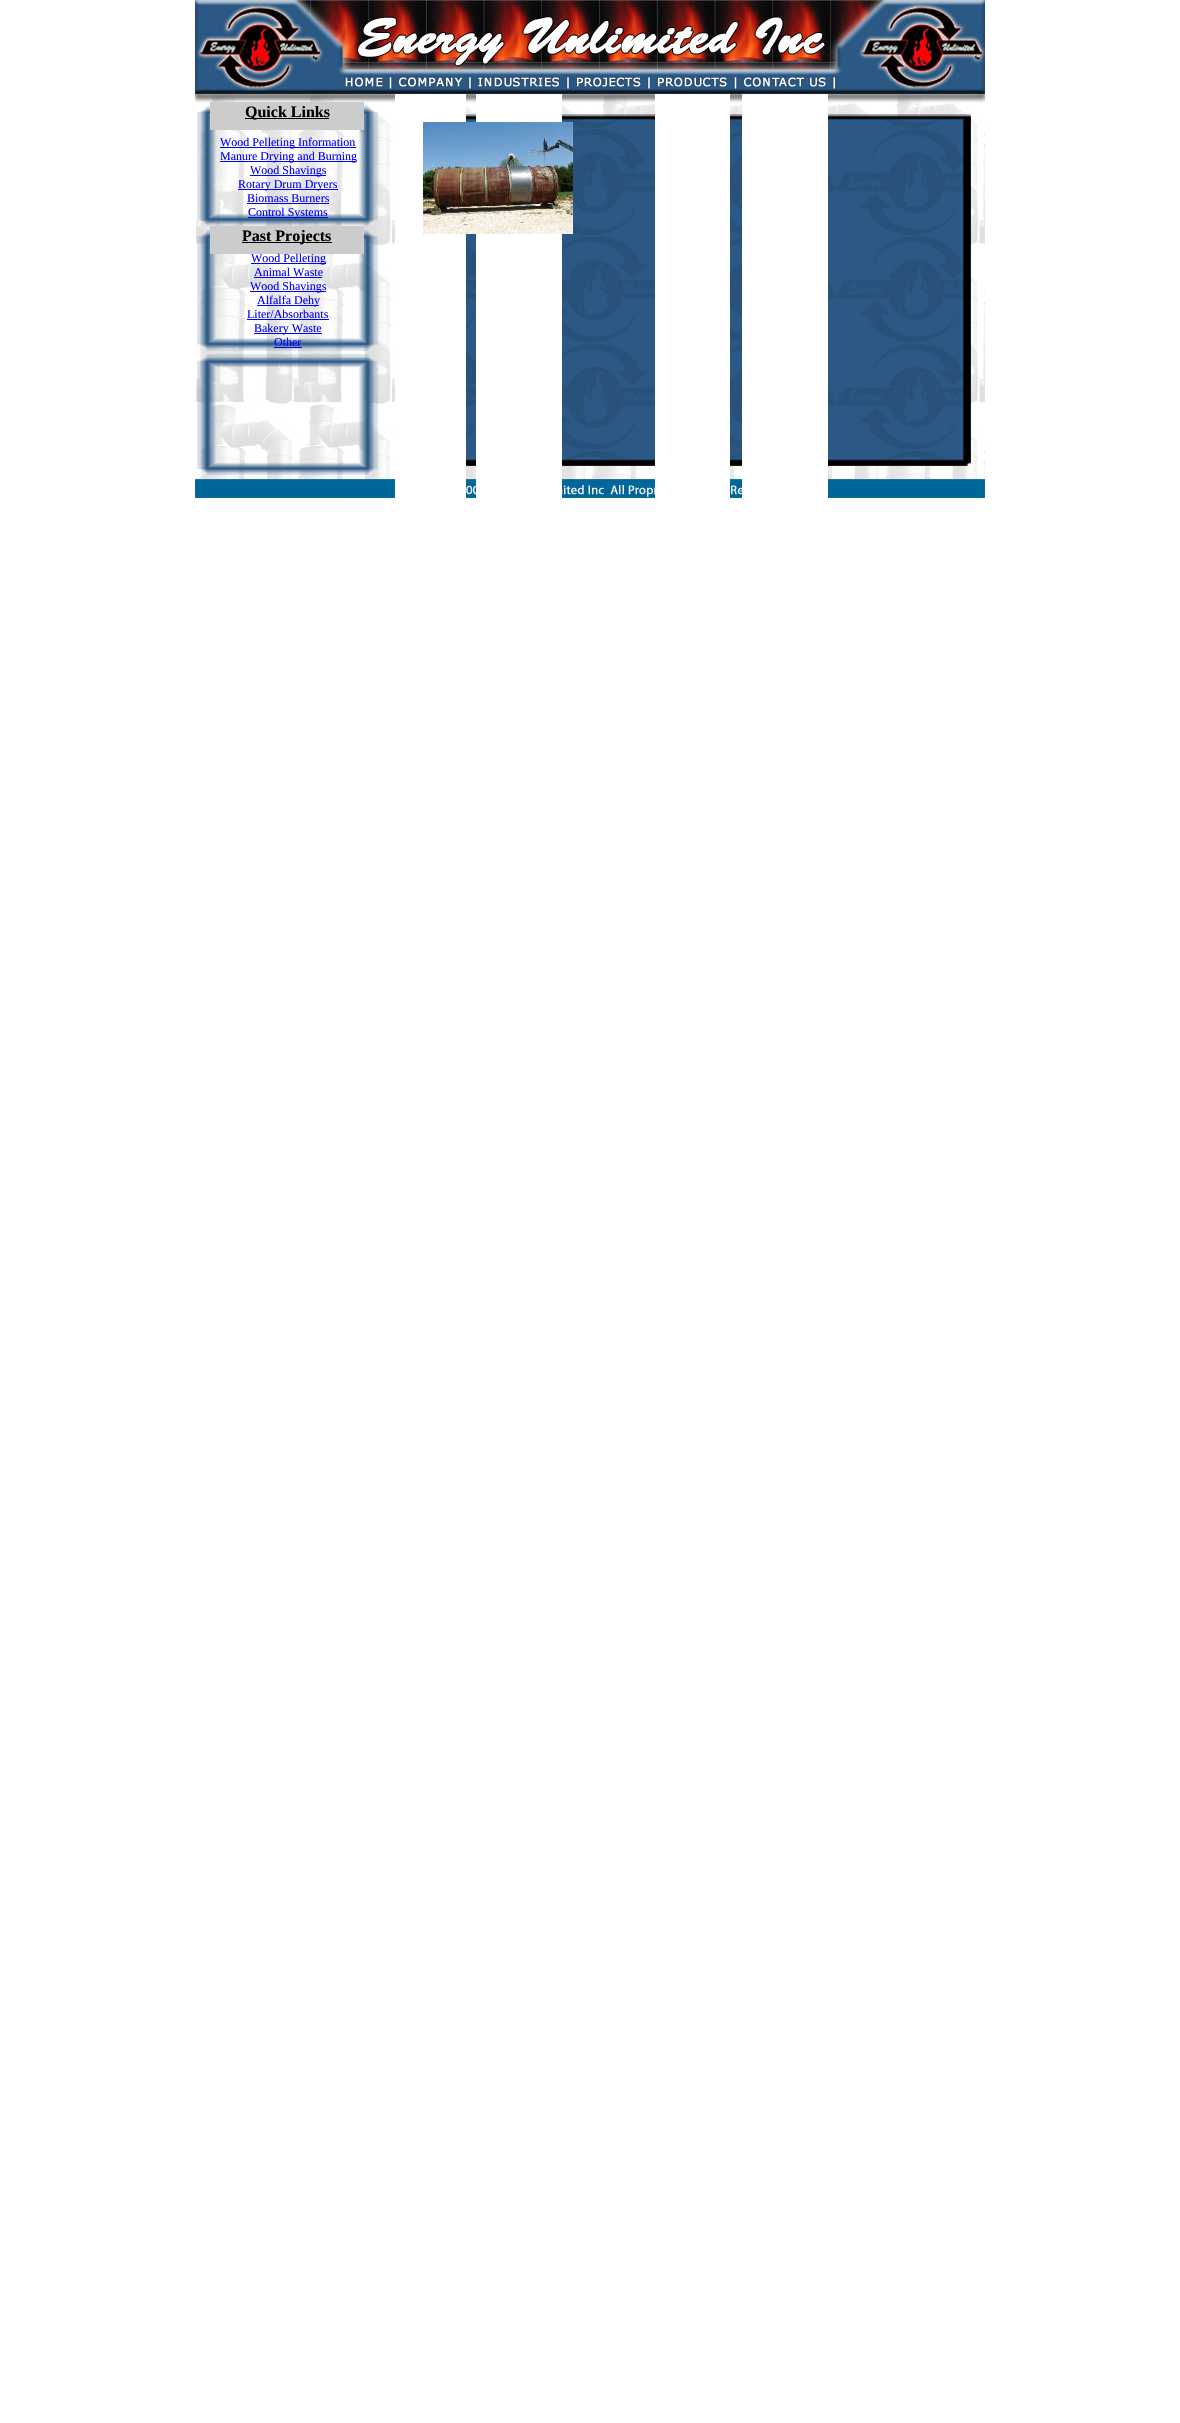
#include "include/core/SkBlurTypes.h"
#include "include/core/SkCanvas.h"
#include "include/core/SkData.h"
#include "include/core/SkFont.h"
#include "include/core/SkFontMgr.h"
#include "include/core/SkImage.h"
#include "include/core/SkMaskFilter.h"
#include "include/core/SkPaint.h"
#include "include/core/SkPathBuilder.h"
#include "include/core/SkTextBlob.h"
#include "include/effects/SkDashPathEffect.h"
#include "include/effects/SkGradientShader.h"
#include "include/utils/SkParsePath.h"

extern sk_sp<SkFontMgr> fontMgr;

void draw(SkCanvas* canvas) {
    SkPaint p;
    p.setAntiAlias(true);
    auto font = [&](const char* family, int weight, float size, bool italic = false) {
        SkFontStyle style(weight, SkFontStyle::kNormal_Width,
            italic ? SkFontStyle::kItalic_Slant : SkFontStyle::kUpright_Slant);
        SkFont result(fontMgr->matchFamilyStyle(family, style), size);
        result.setSubpixel(true);
        return result;
    };
    auto drawPhoto = [&](const char* path, float l, float t, float r, float b) {
        auto image = SkImages::DeferredFromEncodedData(SkData::MakeFromFileName(path));
        canvas->drawImageRect(image, SkRect::MakeLTRB(l, t, r, b), SkSamplingOptions());
    };
    canvas->clear(0xFFFFFFFF);
    drawPhoto("media/1.png", 195, 0, 985, 71);
    drawPhoto("media/2.png", 195, 71, 342, 498);
    drawPhoto("media/3.png", 342, 71, 385, 94);
    drawPhoto("media/4.png", 385, 71, 395, 498);
    drawPhoto("media/5.png", 395, 71, 466, 94);
    drawPhoto("media/6.png", 466, 71, 476, 498);
    drawPhoto("media/7.png", 476, 71, 562, 94);
    drawPhoto("media/8.png", 562, 71, 574, 498);
    drawPhoto("media/9.png", 574, 71, 643, 94);
    drawPhoto("media/10.png", 643, 71, 655, 498);
    drawPhoto("media/11.png", 655, 71, 730, 94);
    drawPhoto("media/12.png", 730, 71, 742, 498);
    drawPhoto("media/13.png", 742, 71, 828, 94);
    drawPhoto("media/14.png", 828, 71, 985, 498);
    drawPhoto("media/15.png", 342, 94, 385, 498);
    p.setColor(0xFFCCCCCC);
    canvas->drawRect(SkRect::MakeLTRB(210, 102, 364, 130), p);
    p.setColor(0xFF000000);
    canvas->drawRect(SkRect::MakeLTRB(245, 118, 329, 119), p);
    auto font1 = font("Liberation Serif", 700, 16);
    canvas->drawString("Quick Links", 245, 117, font1, p);
    drawPhoto("media/16.png", 574, 94, 643, 498);
    p.setColor(0xFF0000FF);
    canvas->drawRect(SkRect::MakeLTRB(220, 147, 356, 148), p);
    auto font2 = font("Liberation Serif", 400, 12);
    canvas->drawString("Wood Pelleting Information", 220, 146, font2, p);
    canvas->drawRect(SkRect::MakeLTRB(220, 161, 356, 162), p);
    canvas->drawString("Manure Drying and Burning", 220, 160, font2, p);
    canvas->drawRect(SkRect::MakeLTRB(250, 175, 326, 176), p);
    canvas->drawString("Wood Shavings", 250, 174, font2, p);
    canvas->drawRect(SkRect::MakeLTRB(238, 189, 338, 190), p);
    canvas->drawString("Rotary Drum Dryers", 238, 188, font2, p);
    canvas->drawString("Biomass Burners", 247, 202, font2, p);
    canvas->drawRect(SkRect::MakeLTRB(247, 203, 329, 204), p);
    canvas->drawRect(SkRect::MakeLTRB(248, 217, 328, 218), p);
    canvas->drawString("Control Systems", 248, 216, font2, p);
    drawPhoto("media/17.png", 423, 122, 573, 234);
    p.setColor(0xFFCCCCCC);
    canvas->drawRect(SkRect::MakeLTRB(210, 226, 364, 254), p);
    p.setColor(0xFF000000);
    canvas->drawRect(SkRect::MakeLTRB(242, 242, 332, 243), p);
    canvas->drawString("Past Projects", 242, 241, font1, p);
    p.setColor(0xFF0000FF);
    canvas->drawRect(SkRect::MakeLTRB(251, 263, 326, 264), p);
    canvas->drawString("Wood Pelleting", 251, 262, font2, p);
    canvas->drawString("Animal Waste", 254, 276, font2, p);
    canvas->drawRect(SkRect::MakeLTRB(254, 277, 322, 278), p);
    canvas->drawRect(SkRect::MakeLTRB(250, 291, 326, 292), p);
    canvas->drawString("Wood Shavings", 250, 290, font2, p);
    canvas->drawRect(SkRect::MakeLTRB(257, 305, 319, 306), p);
    canvas->drawString("Alfalfa Dehy", 257, 304, font2, p);
    canvas->drawString("Liter/Absorbants", 247, 318, font2, p);
    canvas->drawRect(SkRect::MakeLTRB(247, 319, 329, 320), p);
    canvas->drawRect(SkRect::MakeLTRB(254, 333, 322, 334), p);
    canvas->drawString("Bakery Waste", 254, 332, font2, p);
    canvas->drawString("Other", 274, 346, font2, p);
    canvas->drawRect(SkRect::MakeLTRB(274, 347, 302, 348), p);
}
